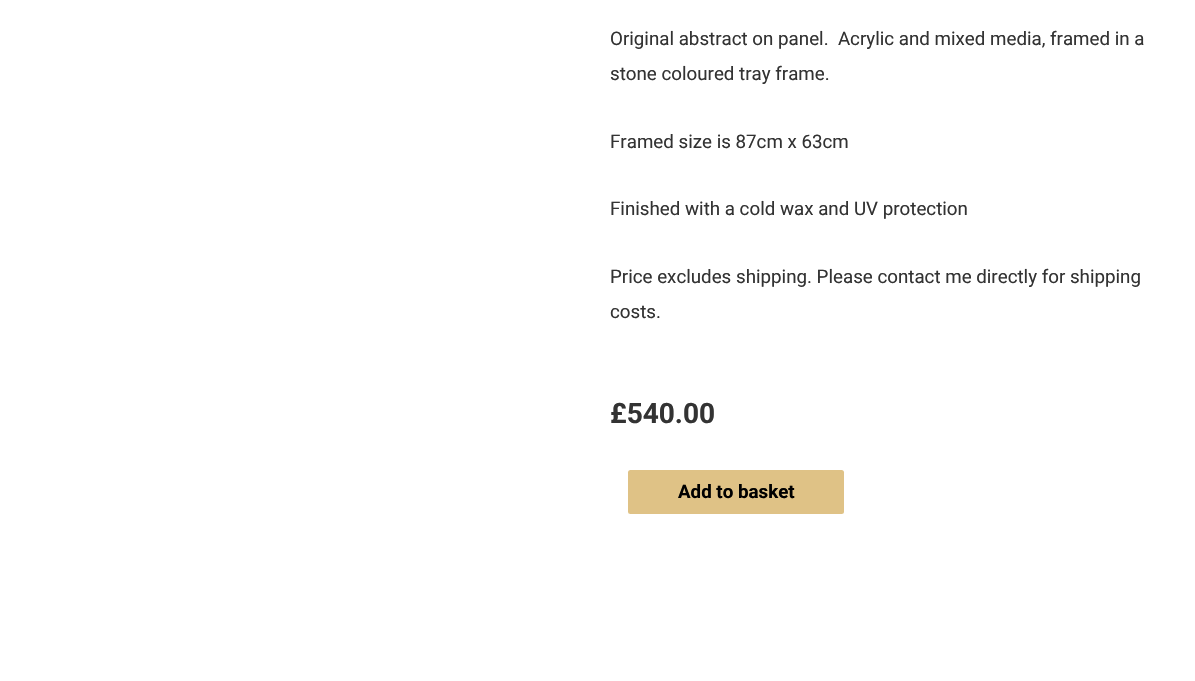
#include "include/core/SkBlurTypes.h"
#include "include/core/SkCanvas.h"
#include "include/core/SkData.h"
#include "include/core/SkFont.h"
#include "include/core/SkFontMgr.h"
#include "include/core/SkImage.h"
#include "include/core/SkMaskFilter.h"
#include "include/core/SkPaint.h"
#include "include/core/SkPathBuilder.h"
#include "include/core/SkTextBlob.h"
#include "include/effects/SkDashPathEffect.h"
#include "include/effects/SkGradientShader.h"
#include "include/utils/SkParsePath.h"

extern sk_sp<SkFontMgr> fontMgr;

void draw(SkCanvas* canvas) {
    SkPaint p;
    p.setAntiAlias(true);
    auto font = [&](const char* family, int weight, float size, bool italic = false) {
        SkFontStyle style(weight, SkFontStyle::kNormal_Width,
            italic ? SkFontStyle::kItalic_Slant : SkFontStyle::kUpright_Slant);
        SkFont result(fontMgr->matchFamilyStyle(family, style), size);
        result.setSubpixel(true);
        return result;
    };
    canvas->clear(0xFFFFFFFF);
    auto font1 = font("Roboto", 400, 18.75f);
    p.setColor(0xFF333333);
    {
        const struct { const char* s; float x, y; } items[] = {
            {"Original abstract on panel.  Acrylic and mixed media, framed in a", 610, 45},
            {"stone coloured tray frame.", 610, 80},
            {"Framed size is 87cm x 63cm", 610, 148},
            {"Finished with a cold wax and UV protection", 610, 215},
            {"Price excludes shipping. Please contact me directly for shipping", 610, 283},
            {"costs.", 610, 318},
        };
        for (auto [s, x, y] : items) {
            canvas->drawString(s, x, y, font1, p);
        }
    }
    auto font2 = font("Roboto", 700, 28);
    canvas->drawString("£540.00", 610, 423, font2, p);
    p.setColor(0xFFDFC286);
    canvas->drawRoundRect(SkRect::MakeLTRB(628, 470, 844, 514), 2.5f, 2.5f, p);
    auto font3 = font("Roboto", 700, 18.75f);
    p.setColor(0xFF000000);
    canvas->drawString("Add to basket", 678, 498, font3, p);
}
